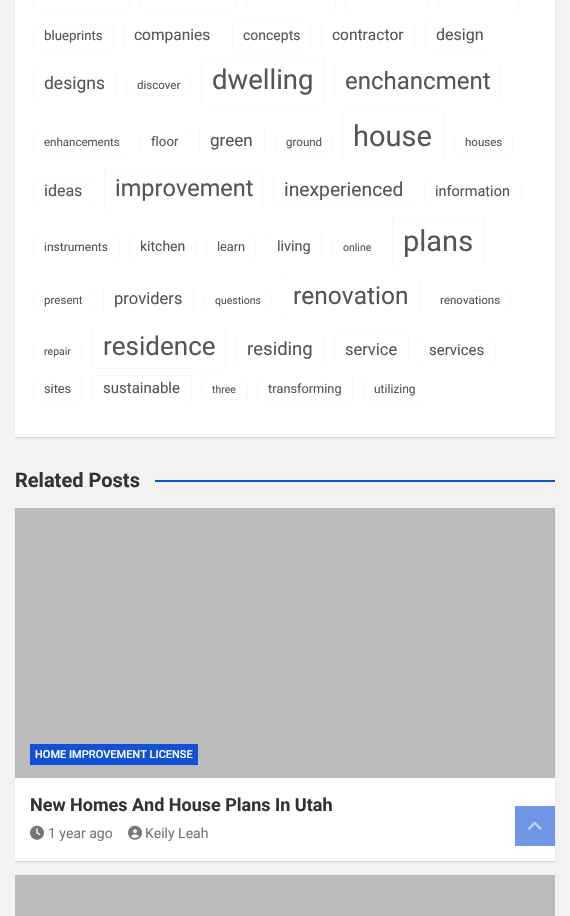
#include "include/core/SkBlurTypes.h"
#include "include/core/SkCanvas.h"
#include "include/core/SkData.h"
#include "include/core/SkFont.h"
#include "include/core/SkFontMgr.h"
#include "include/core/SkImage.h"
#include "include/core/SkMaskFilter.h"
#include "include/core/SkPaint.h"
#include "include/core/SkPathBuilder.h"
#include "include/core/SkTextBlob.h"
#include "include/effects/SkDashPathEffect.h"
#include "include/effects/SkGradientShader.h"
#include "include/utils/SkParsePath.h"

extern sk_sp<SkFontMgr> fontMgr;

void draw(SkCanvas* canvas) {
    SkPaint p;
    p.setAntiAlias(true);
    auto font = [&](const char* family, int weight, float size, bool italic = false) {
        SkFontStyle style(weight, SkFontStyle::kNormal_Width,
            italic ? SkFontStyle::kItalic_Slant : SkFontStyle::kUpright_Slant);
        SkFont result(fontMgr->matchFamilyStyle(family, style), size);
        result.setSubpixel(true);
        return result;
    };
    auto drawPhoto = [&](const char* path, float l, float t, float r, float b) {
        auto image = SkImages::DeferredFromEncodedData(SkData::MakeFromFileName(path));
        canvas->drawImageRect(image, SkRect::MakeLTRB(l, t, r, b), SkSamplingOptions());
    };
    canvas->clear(0xFFF2F2F2);
    p.setColor(0x1A000000);
    p.setMaskFilter(SkMaskFilter::MakeBlur(kNormal_SkBlurStyle, 0.5f));
    canvas->drawRect(SkRect::MakeLTRB(15, -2, 555, 438), p);
    p.setMaskFilter(nullptr);
    p.setColor(0xFFFFFFFF);
    canvas->drawRect(SkRect::MakeLTRB(15, 0, 555, 437), p);
    p.setStyle(SkPaint::kStroke_Style);
    p.setStrokeWidth(1);
    p.setColor(0xFFF9F9F9);
    canvas->drawRect(SkRect::MakeLTRB(33.5f, -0.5f, 129.5f, 8.5f), p);
    canvas->drawRect(SkRect::MakeLTRB(140.5f, -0.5f, 235.5f, 8.5f), p);
    canvas->drawRect(SkRect::MakeLTRB(246.5f, -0.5f, 335.5f, 9.5f), p);
    canvas->drawRect(SkRect::MakeLTRB(345.5f, -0.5f, 427.5f, 11.5f), p);
    canvas->drawRect(SkRect::MakeLTRB(438.5f, -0.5f, 518.5f, 13.5f), p);
    canvas->drawRect(SkRect::MakeLTRB(33.5f, 24.5f, 113.5f, 48.5f), p);
    auto font1 = font("Roboto", 400, 13.25f);
    p.setStyle(SkPaint::kFill_Style);
    p.setColor(0xFF555555);
    canvas->drawString("blueprints", 44, 40, font1, p);
    p.setStyle(SkPaint::kStroke_Style);
    p.setColor(0xFFF9F9F9);
    canvas->drawRect(SkRect::MakeLTRB(123.5f, 21.5f, 221.5f, 49.5f), p);
    auto font2 = font("Roboto", 400, 15.5f);
    p.setStyle(SkPaint::kFill_Style);
    p.setColor(0xFF555555);
    canvas->drawString("companies", 134, 40, font2, p);
    p.setStyle(SkPaint::kStroke_Style);
    p.setColor(0xFFF9F9F9);
    canvas->drawRect(SkRect::MakeLTRB(232.5f, 23.5f, 310.5f, 48.5f), p);
    auto font3 = font("Roboto", 400, 14);
    p.setStyle(SkPaint::kFill_Style);
    p.setColor(0xFF555555);
    canvas->drawString("concepts", 243, 40, font3, p);
    p.setStyle(SkPaint::kStroke_Style);
    p.setColor(0xFFF9F9F9);
    canvas->drawRect(SkRect::MakeLTRB(321.5f, 21.5f, 414.5f, 49.5f), p);
    p.setStyle(SkPaint::kFill_Style);
    p.setColor(0xFF555555);
    canvas->drawString("contractor", 332, 40, font2, p);
    p.setStyle(SkPaint::kStroke_Style);
    p.setColor(0xFFF9F9F9);
    canvas->drawRect(SkRect::MakeLTRB(425.5f, 20.5f, 493.5f, 48.5f), p);
    auto font4 = font("Roboto", 400, 16);
    p.setStyle(SkPaint::kFill_Style);
    p.setColor(0xFF555555);
    canvas->drawString("design", 436, 40, font4, p);
    p.setStyle(SkPaint::kStroke_Style);
    p.setColor(0xFFF9F9F9);
    canvas->drawRect(SkRect::MakeLTRB(33.5f, 68.5f, 115.5f, 99.5f), p);
    auto font5 = font("Roboto", 400, 17.5f);
    p.setStyle(SkPaint::kFill_Style);
    p.setColor(0xFF555555);
    canvas->drawString("designs", 44, 89, font5, p);
    p.setStyle(SkPaint::kStroke_Style);
    p.setColor(0xFFF9F9F9);
    canvas->drawRect(SkRect::MakeLTRB(126.5f, 75.5f, 190.5f, 95.5f), p);
    auto font6 = font("Roboto", 400, 11.5f);
    p.setStyle(SkPaint::kFill_Style);
    p.setColor(0xFF555555);
    canvas->drawString("discover", 137, 89, font6, p);
    p.setStyle(SkPaint::kStroke_Style);
    p.setColor(0xFFF9F9F9);
    canvas->drawRect(SkRect::MakeLTRB(201.5f, 56.5f, 324.5f, 104.5f), p);
    auto font7 = font("Roboto", 400, 27.5f);
    p.setStyle(SkPaint::kFill_Style);
    p.setColor(0xFF555555);
    canvas->drawString("dwelling", 212, 89, font7, p);
    p.setStyle(SkPaint::kStroke_Style);
    p.setColor(0xFFF9F9F9);
    canvas->drawRect(SkRect::MakeLTRB(334.5f, 60.5f, 500.5f, 101.5f), p);
    auto font8 = font("Roboto", 400, 24);
    p.setStyle(SkPaint::kFill_Style);
    p.setColor(0xFF555555);
    canvas->drawString("enchancment", 345, 89, font8, p);
    p.setStyle(SkPaint::kStroke_Style);
    p.setColor(0xFFF9F9F9);
    canvas->drawRect(SkRect::MakeLTRB(33.5f, 132.5f, 130.5f, 152.5f), p);
    p.setStyle(SkPaint::kFill_Style);
    p.setColor(0xFF555555);
    canvas->drawString("enhancements", 44, 146, font6, p);
    p.setStyle(SkPaint::kStroke_Style);
    p.setColor(0xFFF9F9F9);
    canvas->drawRect(SkRect::MakeLTRB(140.5f, 130.5f, 189.5f, 153.5f), p);
    p.setStyle(SkPaint::kFill_Style);
    p.setColor(0xFF555555);
    canvas->drawString("floor", 151, 146, font1, p);
    p.setStyle(SkPaint::kStroke_Style);
    p.setColor(0xFFF9F9F9);
    canvas->drawRect(SkRect::MakeLTRB(199.5f, 125.5f, 264.5f, 155.5f), p);
    auto font9 = font("Roboto", 400, 17);
    p.setStyle(SkPaint::kFill_Style);
    p.setColor(0xFF555555);
    canvas->drawString("green", 210, 146, font9, p);
    p.setStyle(SkPaint::kStroke_Style);
    p.setColor(0xFFF9F9F9);
    canvas->drawRect(SkRect::MakeLTRB(275.5f, 132.5f, 332.5f, 152.5f), p);
    p.setStyle(SkPaint::kFill_Style);
    p.setColor(0xFF555555);
    canvas->drawString("ground", 286, 146, font6, p);
    p.setStyle(SkPaint::kStroke_Style);
    p.setColor(0xFFF9F9F9);
    canvas->drawRect(SkRect::MakeLTRB(342.5f, 111.5f, 443.5f, 161.5f), p);
    auto font10 = font("Roboto", 400, 29);
    p.setStyle(SkPaint::kFill_Style);
    p.setColor(0xFF555555);
    canvas->drawString("house", 353, 146, font10, p);
    p.setStyle(SkPaint::kStroke_Style);
    p.setColor(0xFFF9F9F9);
    canvas->drawRect(SkRect::MakeLTRB(454.5f, 132.5f, 512.5f, 152.5f), p);
    p.setStyle(SkPaint::kFill_Style);
    p.setColor(0xFF555555);
    canvas->drawString("houses", 465, 146, font6, p);
    p.setStyle(SkPaint::kStroke_Style);
    p.setColor(0xFFF9F9F9);
    canvas->drawRect(SkRect::MakeLTRB(33.5f, 176.5f, 93.5f, 205.5f), p);
    p.setStyle(SkPaint::kFill_Style);
    p.setColor(0xFF555555);
    canvas->drawString("ideas", 44, 196, font4, p);
    p.setStyle(SkPaint::kStroke_Style);
    p.setColor(0xFFF9F9F9);
    canvas->drawRect(SkRect::MakeLTRB(104.5f, 168.5f, 262.5f, 209.5f), p);
    auto font11 = font("Roboto", 400, 23.5f);
    p.setStyle(SkPaint::kFill_Style);
    p.setColor(0xFF555555);
    canvas->drawString("improvement", 115, 196, font11, p);
    p.setStyle(SkPaint::kStroke_Style);
    p.setColor(0xFFF9F9F9);
    canvas->drawRect(SkRect::MakeLTRB(273.5f, 173.5f, 413.5f, 207.5f), p);
    auto font12 = font("Roboto", 400, 19.25f);
    p.setStyle(SkPaint::kFill_Style);
    p.setColor(0xFF555555);
    canvas->drawString("inexperienced", 284, 196, font12, p);
    p.setStyle(SkPaint::kStroke_Style);
    p.setColor(0xFFF9F9F9);
    canvas->drawRect(SkRect::MakeLTRB(424.5f, 178.5f, 521.5f, 204.5f), p);
    auto font13 = font("Roboto", 400, 14.5f);
    p.setStyle(SkPaint::kFill_Style);
    p.setColor(0xFF555555);
    canvas->drawString("information", 435, 196, font13, p);
    p.setStyle(SkPaint::kStroke_Style);
    p.setColor(0xFFF9F9F9);
    canvas->drawRect(SkRect::MakeLTRB(33.5f, 236.5f, 119.5f, 258.5f), p);
    auto font14 = font("Roboto", 400, 12);
    p.setStyle(SkPaint::kFill_Style);
    p.setColor(0xFF555555);
    canvas->drawString("instruments", 44, 251, font14, p);
    p.setStyle(SkPaint::kStroke_Style);
    p.setColor(0xFFF9F9F9);
    canvas->drawRect(SkRect::MakeLTRB(129.5f, 234.5f, 195.5f, 259.5f), p);
    p.setStyle(SkPaint::kFill_Style);
    p.setColor(0xFF555555);
    canvas->drawString("kitchen", 140, 251, font3, p);
    p.setStyle(SkPaint::kStroke_Style);
    p.setColor(0xFFF9F9F9);
    canvas->drawRect(SkRect::MakeLTRB(206.5f, 235.5f, 255.5f, 258.5f), p);
    auto font15 = font("Roboto", 400, 12.75f);
    p.setStyle(SkPaint::kFill_Style);
    p.setColor(0xFF555555);
    canvas->drawString("learn", 217, 251, font15, p);
    p.setStyle(SkPaint::kStroke_Style);
    p.setColor(0xFFF9F9F9);
    canvas->drawRect(SkRect::MakeLTRB(266.5f, 233.5f, 321.5f, 259.5f), p);
    p.setStyle(SkPaint::kFill_Style);
    p.setColor(0xFF555555);
    canvas->drawString("living", 277, 251, font13, p);
    p.setStyle(SkPaint::kStroke_Style);
    p.setColor(0xFFF9F9F9);
    canvas->drawRect(SkRect::MakeLTRB(332.5f, 238.5f, 381.5f, 257.5f), p);
    auto font16 = font("Roboto", 400, 10.5f);
    p.setStyle(SkPaint::kFill_Style);
    p.setColor(0xFF555555);
    canvas->drawString("online", 343, 251, font16, p);
    p.setStyle(SkPaint::kStroke_Style);
    p.setColor(0xFFF9F9F9);
    canvas->drawRect(SkRect::MakeLTRB(392.5f, 216.5f, 483.5f, 267.5f), p);
    p.setStyle(SkPaint::kFill_Style);
    p.setColor(0xFF555555);
    canvas->drawString("plans", 403, 251, font10, p);
    p.setStyle(SkPaint::kStroke_Style);
    p.setColor(0xFFF9F9F9);
    canvas->drawRect(SkRect::MakeLTRB(33.5f, 290.5f, 93.5f, 310.5f), p);
    p.setStyle(SkPaint::kFill_Style);
    p.setColor(0xFF555555);
    canvas->drawString("present", 44, 304, font6, p);
    p.setStyle(SkPaint::kStroke_Style);
    p.setColor(0xFFF9F9F9);
    canvas->drawRect(SkRect::MakeLTRB(103.5f, 284.5f, 193.5f, 313.5f), p);
    auto font17 = font("Roboto", 400, 16.5f);
    p.setStyle(SkPaint::kFill_Style);
    p.setColor(0xFF555555);
    canvas->drawString("providers", 114, 304, font17, p);
    p.setStyle(SkPaint::kStroke_Style);
    p.setColor(0xFFF9F9F9);
    canvas->drawRect(SkRect::MakeLTRB(204.5f, 291.5f, 271.5f, 310.5f), p);
    p.setStyle(SkPaint::kFill_Style);
    p.setColor(0xFF555555);
    canvas->drawString("questions", 215, 304, font16, p);
    p.setStyle(SkPaint::kStroke_Style);
    p.setColor(0xFFF9F9F9);
    canvas->drawRect(SkRect::MakeLTRB(282.5f, 274.5f, 419.5f, 316.5f), p);
    auto font18 = font("Roboto", 400, 24.5f);
    p.setStyle(SkPaint::kFill_Style);
    p.setColor(0xFF555555);
    canvas->drawString("renovation", 293, 304, font18, p);
    p.setStyle(SkPaint::kStroke_Style);
    p.setColor(0xFFF9F9F9);
    canvas->drawRect(SkRect::MakeLTRB(429.5f, 290.5f, 510.5f, 310.5f), p);
    p.setStyle(SkPaint::kFill_Style);
    p.setColor(0xFF555555);
    canvas->drawString("renovations", 440, 304, font6, p);
    p.setStyle(SkPaint::kStroke_Style);
    p.setColor(0xFFF9F9F9);
    canvas->drawRect(SkRect::MakeLTRB(33.5f, 342.5f, 81.5f, 361.5f), p);
    p.setStyle(SkPaint::kFill_Style);
    p.setColor(0xFF555555);
    canvas->drawString("repair", 44, 355, font16, p);
    p.setStyle(SkPaint::kStroke_Style);
    p.setColor(0xFFF9F9F9);
    canvas->drawRect(SkRect::MakeLTRB(92.5f, 323.5f, 225.5f, 368.5f), p);
    auto font19 = font("Roboto", 400, 26);
    p.setStyle(SkPaint::kFill_Style);
    p.setColor(0xFF555555);
    canvas->drawString("residence", 103, 355, font19, p);
    p.setStyle(SkPaint::kStroke_Style);
    p.setColor(0xFFF9F9F9);
    canvas->drawRect(SkRect::MakeLTRB(236.5f, 333.5f, 323.5f, 366.5f), p);
    auto font20 = font("Roboto", 400, 18.5f);
    p.setStyle(SkPaint::kFill_Style);
    p.setColor(0xFF555555);
    canvas->drawString("residing", 247, 355, font20, p);
    p.setStyle(SkPaint::kStroke_Style);
    p.setColor(0xFFF9F9F9);
    canvas->drawRect(SkRect::MakeLTRB(334.5f, 335.5f, 408.5f, 364.5f), p);
    p.setStyle(SkPaint::kFill_Style);
    p.setColor(0xFF555555);
    canvas->drawString("service", 345, 355, font17, p);
    p.setStyle(SkPaint::kStroke_Style);
    p.setColor(0xFFF9F9F9);
    canvas->drawRect(SkRect::MakeLTRB(418.5f, 337.5f, 495.5f, 364.5f), p);
    auto font21 = font("Roboto", 400, 15);
    p.setStyle(SkPaint::kFill_Style);
    p.setColor(0xFF555555);
    canvas->drawString("services", 429, 355, font21, p);
    p.setStyle(SkPaint::kStroke_Style);
    p.setColor(0xFFF9F9F9);
    canvas->drawRect(SkRect::MakeLTRB(33.5f, 377.5f, 81.5f, 400.5f), p);
    p.setStyle(SkPaint::kFill_Style);
    p.setColor(0xFF555555);
    canvas->drawString("sites", 44, 393, font15, p);
    p.setStyle(SkPaint::kStroke_Style);
    p.setColor(0xFFF9F9F9);
    canvas->drawRect(SkRect::MakeLTRB(92.5f, 375.5f, 191.5f, 402.5f), p);
    p.setStyle(SkPaint::kFill_Style);
    p.setColor(0xFF555555);
    canvas->drawString("sustainable", 103, 393, font21, p);
    p.setStyle(SkPaint::kStroke_Style);
    p.setColor(0xFFF9F9F9);
    canvas->drawRect(SkRect::MakeLTRB(201.5f, 380.5f, 247.5f, 399.5f), p);
    p.setStyle(SkPaint::kFill_Style);
    p.setColor(0xFF555555);
    canvas->drawString("three", 212, 393, font16, p);
    p.setStyle(SkPaint::kStroke_Style);
    p.setColor(0xFFF9F9F9);
    canvas->drawRect(SkRect::MakeLTRB(257.5f, 377.5f, 352.5f, 400.5f), p);
    p.setStyle(SkPaint::kFill_Style);
    p.setColor(0xFF555555);
    canvas->drawString("transforming", 268, 393, font15, p);
    p.setStyle(SkPaint::kStroke_Style);
    p.setColor(0xFFF9F9F9);
    canvas->drawRect(SkRect::MakeLTRB(363.5f, 378.5f, 426.5f, 400.5f), p);
    p.setStyle(SkPaint::kFill_Style);
    p.setColor(0xFF555555);
    canvas->drawString("utilizing", 374, 393, font14, p);
    auto font22 = font("Roboto", 700, 20);
    p.setColor(0xFF333333);
    canvas->drawString("Related Posts", 15, 487, font22, p);
    p.setColor(0xFF1151D3);
    canvas->drawRect(SkRect::MakeLTRB(155, 480, 555, 482), p);
    p.setColor(0x1A000000);
    p.setMaskFilter(SkMaskFilter::MakeBlur(kNormal_SkBlurStyle, 0.5f));
    canvas->drawRect(SkRect::MakeLTRB(15, 509, 555, 862), p);
    p.setMaskFilter(nullptr);
    {
        const struct { float l, t, r, b; SkColor color; } items[] = {
            {15, 778, 555, 861, 0xFFFFFFFF},
            {15, 508, 555, 778, 0xFFBBBBBB},
            {30, 744, 198, 765, 0xFF1151D3},
        };
        for (auto [l, t, r, b, color] : items) {
            p.setColor(color);
            canvas->drawRect(SkRect::MakeLTRB(l, t, r, b), p);
        }
    }
    auto font23 = font("Roboto", 500, 11);
    p.setColor(0xFFFFFFFF);
    canvas->drawString("HOME IMPROVEMENT LICENSE", 35, 758, font23, p);
    auto font24 = font("Roboto", 700, 18);
    p.setColor(0xFF333333);
    canvas->drawString("New Homes And House Plans In Utah", 30, 811, font24, p);
    drawPhoto("media/1.png", 30, 825, 44, 840);
    p.setColor(0xFF777777);
    canvas->drawString("1 year ago", 48, 838, font3, p);
    drawPhoto("media/2.png", 128, 825, 142, 840);
    canvas->drawString("Keily Leah", 145, 838, font3, p);
    p.setColor(0xFFBBBBBB);
    canvas->drawRect(SkRect::MakeLTRB(15, 875, 555, 916), p);
    p.setColor(0xFF7097E5);
    canvas->drawRect(SkRect::MakeLTRB(515, 806, 555, 846), p);
    drawPhoto("media/3.png", 528, 821, 542, 830);
}
